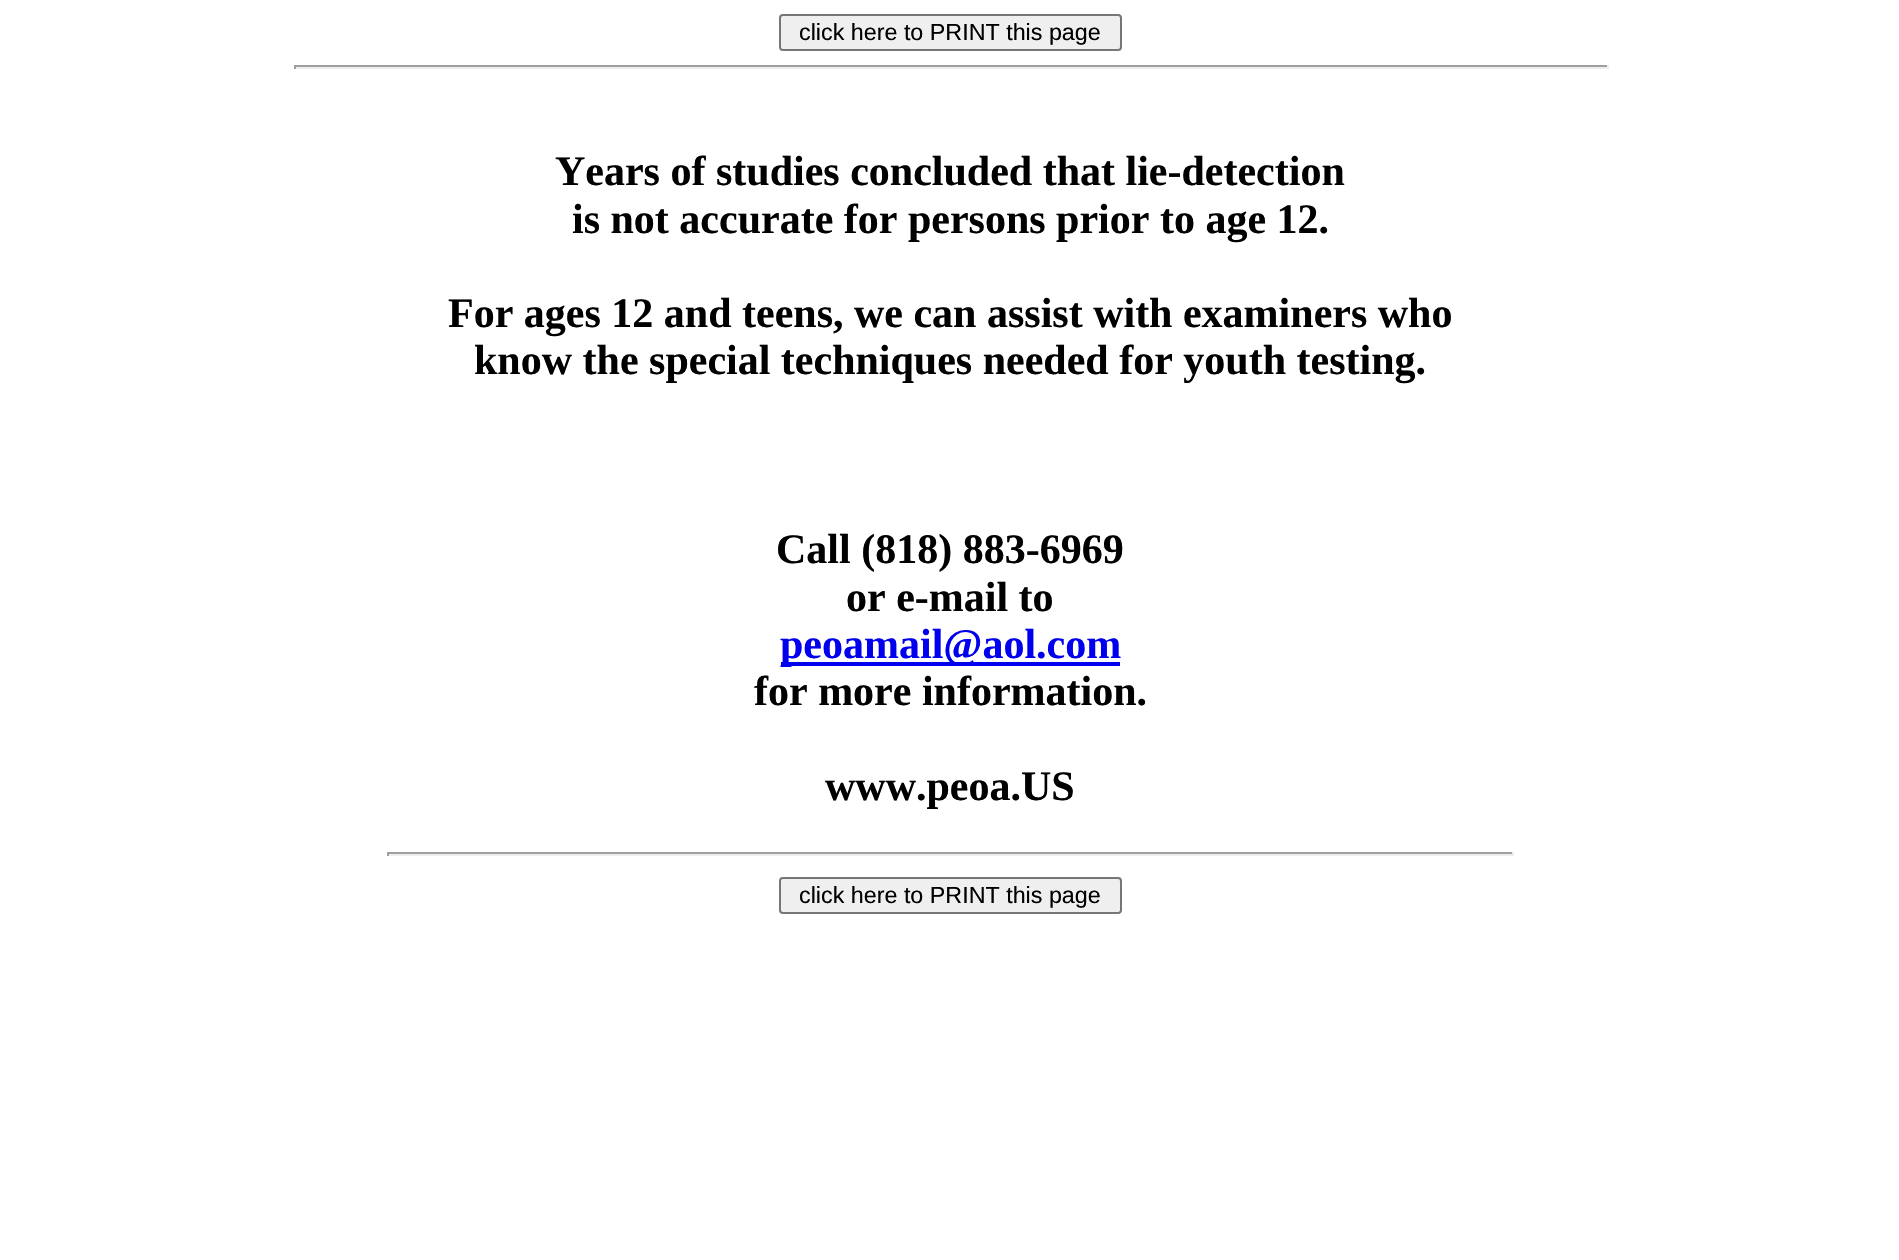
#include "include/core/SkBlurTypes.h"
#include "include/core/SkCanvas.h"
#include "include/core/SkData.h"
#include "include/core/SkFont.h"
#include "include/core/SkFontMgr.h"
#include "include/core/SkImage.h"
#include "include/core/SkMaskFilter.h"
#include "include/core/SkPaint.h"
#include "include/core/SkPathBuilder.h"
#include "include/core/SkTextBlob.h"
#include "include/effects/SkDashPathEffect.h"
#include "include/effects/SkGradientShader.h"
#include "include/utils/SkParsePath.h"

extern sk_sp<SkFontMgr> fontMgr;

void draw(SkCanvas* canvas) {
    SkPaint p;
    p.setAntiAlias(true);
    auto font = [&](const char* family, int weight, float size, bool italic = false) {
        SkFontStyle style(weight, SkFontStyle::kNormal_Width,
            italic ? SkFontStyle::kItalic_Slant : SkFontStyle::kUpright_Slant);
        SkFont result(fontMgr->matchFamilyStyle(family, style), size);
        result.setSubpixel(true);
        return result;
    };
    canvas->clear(0xFFFFFFFF);
    p.setColor(0xFFEFEFEF);
    canvas->drawRoundRect(SkRect::MakeLTRB(780, 15, 1121, 50), 3, 3, p);
    p.setStyle(SkPaint::kStroke_Style);
    p.setStrokeWidth(2);
    p.setColor(0xFF767676);
    canvas->drawRoundRect(SkRect::MakeLTRB(780, 15, 1121, 50), 3, 3, p);
    auto font1 = font("Liberation Sans", 400, 23.3f);
    p.setStyle(SkPaint::kFill_Style);
    p.setColor(0xFF000000);
    canvas->drawString("click here to PRINT this page", 799, 40, font1, p);
    {
        const struct { float l, t, r, b; SkColor color; } items[] = {
            {294, 65, 1608, 67, 0xFF9F9F9F},
            {1607, 65, 1609, 69, 0xFFEEEEEE},
            {294, 67, 1608, 69, 0xFFEEEEEE},
            {294, 65, 296, 69, 0xFF9F9F9F},
        };
        for (auto [l, t, r, b, color] : items) {
            p.setColor(color);
            canvas->drawRect(SkRect::MakeLTRB(l, t, r, b), p);
        }
    }
    auto font2 = font("Liberation Serif", 700, 42);
    p.setColor(0xFF000000);
    {
        const struct { const char* s; float x, y; } items[] = {
            {"Years of studies concluded that lie-detection", 555, 185},
            {"is not accurate for persons prior to age 12.", 572, 233},
            {"For ages 12 and teens, we can assist with examiners who", 448, 327},
            {"know the special techniques needed for youth testing.", 474, 374},
            {"Call (818) 883-6969", 776, 563},
            {"or e-mail to", 846, 611},
        };
        for (auto [s, x, y] : items) {
            canvas->drawString(s, x, y, font2, p);
        }
    }
    p.setColor(0xFF0000EE);
    canvas->drawRect(SkRect::MakeLTRB(781, 662, 1120, 666), p);
    canvas->drawString("peoamail@aol.com", 780, 658, font2, p);
    p.setColor(0xFF000000);
    canvas->drawString("for more information.", 754, 705, font2, p);
    canvas->drawString("www.peoa.US", 825, 800, font2, p);
    {
        const struct { float l, t, r, b; SkColor color; } items[] = {
            {387, 852, 1514, 854, 0xFF9F9F9F},
            {1512, 852, 1514, 856, 0xFFEEEEEE},
            {387, 854, 1514, 856, 0xFFEEEEEE},
            {387, 852, 389, 856, 0xFF9F9F9F},
        };
        for (auto [l, t, r, b, color] : items) {
            p.setColor(color);
            canvas->drawRect(SkRect::MakeLTRB(l, t, r, b), p);
        }
    }
    p.setColor(0xFFEFEFEF);
    canvas->drawRoundRect(SkRect::MakeLTRB(780, 878, 1121, 913), 3, 3, p);
    p.setStyle(SkPaint::kStroke_Style);
    p.setColor(0xFF767676);
    canvas->drawRoundRect(SkRect::MakeLTRB(780, 878, 1121, 913), 3, 3, p);
    p.setStyle(SkPaint::kFill_Style);
    p.setColor(0xFF000000);
    canvas->drawString("click here to PRINT this page", 799, 903, font1, p);
}
